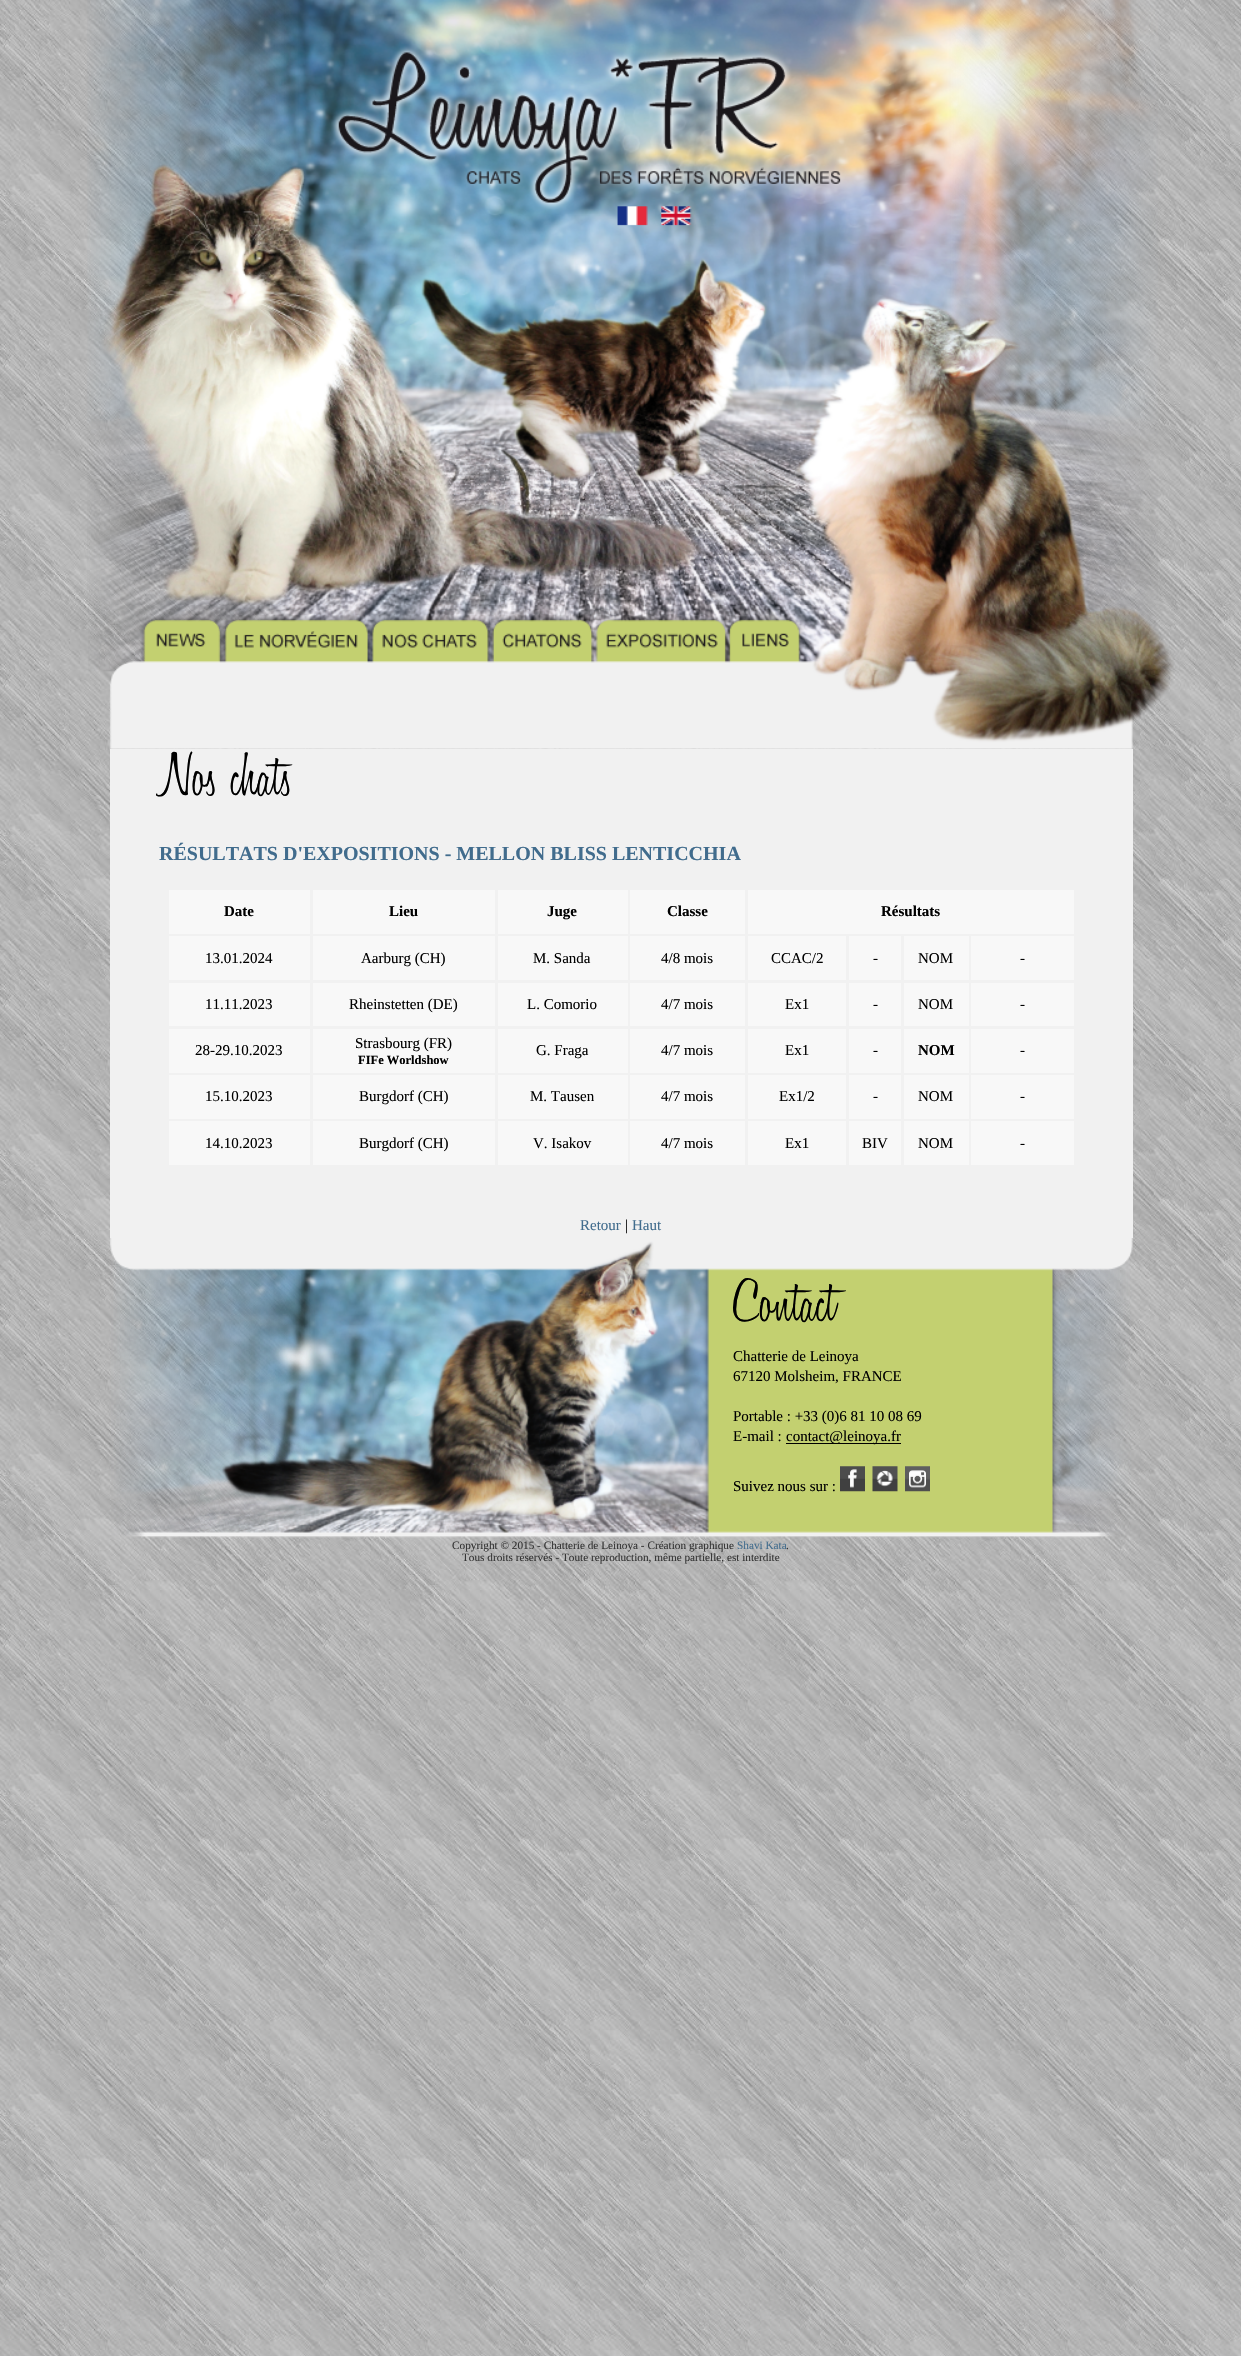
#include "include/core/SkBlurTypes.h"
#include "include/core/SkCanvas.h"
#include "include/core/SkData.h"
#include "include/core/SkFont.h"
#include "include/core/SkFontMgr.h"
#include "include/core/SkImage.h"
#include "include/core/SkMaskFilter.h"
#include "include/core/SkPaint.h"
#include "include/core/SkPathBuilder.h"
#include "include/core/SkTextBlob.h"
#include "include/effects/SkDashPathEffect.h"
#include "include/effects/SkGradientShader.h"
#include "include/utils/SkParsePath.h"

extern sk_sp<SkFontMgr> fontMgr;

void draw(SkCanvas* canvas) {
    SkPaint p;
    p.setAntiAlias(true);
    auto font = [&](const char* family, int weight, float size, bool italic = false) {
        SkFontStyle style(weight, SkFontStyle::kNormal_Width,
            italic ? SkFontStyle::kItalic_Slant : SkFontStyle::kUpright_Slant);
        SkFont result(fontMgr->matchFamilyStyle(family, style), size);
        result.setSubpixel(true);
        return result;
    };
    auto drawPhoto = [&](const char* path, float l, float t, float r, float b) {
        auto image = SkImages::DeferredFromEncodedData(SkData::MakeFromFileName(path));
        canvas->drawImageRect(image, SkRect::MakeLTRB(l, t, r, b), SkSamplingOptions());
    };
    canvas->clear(0xFFFFFFFF);
    drawPhoto("media/1.png", 0, 0, 1241, 2356);
    drawPhoto("media/2.png", 87, 0, 1158, 605);
    drawPhoto("media/3.png", 88, 605, 1174, 749);
    p.setColor(0xFFF1F1F1);
    canvas->drawRect(SkRect::MakeLTRB(110, 749, 1133, 1238), p);
    auto font1 = font("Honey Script", 300, 62.5f);
    p.setColor(0xFF000000);
    canvas->drawString("Nos chats", 159, 795, font1, p);
    auto font2 = font("Liberation Serif", 700, 20);
    p.setColor(0xFF416C8D);
    canvas->drawString("RÉSULTATS D'EXPOSITIONS - MELLON BLISS LENTICCHIA", 159, 860, font2, p);
    p.setColor(0xFFF8F8F8);
    canvas->drawRect(SkRect::MakeLTRB(169, 890, 310, 934), p);
    auto font3 = font("Liberation Serif", 700, 15);
    p.setColor(0xFF000000);
    canvas->drawString("Date", 224, 916, font3, p);
    p.setColor(0xFFF8F8F8);
    canvas->drawRect(SkRect::MakeLTRB(313, 890, 495, 934), p);
    p.setColor(0xFF000000);
    canvas->drawString("Lieu", 389, 916, font3, p);
    p.setColor(0xFFF8F8F8);
    canvas->drawRect(SkRect::MakeLTRB(498, 890, 628, 934), p);
    p.setColor(0xFF000000);
    canvas->drawString("Juge", 547, 916, font3, p);
    p.setColor(0xFFF8F8F8);
    canvas->drawRect(SkRect::MakeLTRB(630, 890, 745, 934), p);
    p.setColor(0xFF000000);
    canvas->drawString("Classe", 667, 916, font3, p);
    p.setColor(0xFFF8F8F8);
    canvas->drawRect(SkRect::MakeLTRB(748, 890, 1074, 934), p);
    p.setColor(0xFF000000);
    canvas->drawString("Résultats", 881, 916, font3, p);
    p.setColor(0xFFF8F8F8);
    canvas->drawRect(SkRect::MakeLTRB(169, 936, 310, 980), p);
    auto font4 = font("Liberation Serif", 400, 15);
    p.setColor(0xFF000000);
    canvas->drawString("13.01.2024", 205, 963, font4, p);
    p.setColor(0xFFF8F8F8);
    canvas->drawRect(SkRect::MakeLTRB(313, 936, 495, 980), p);
    p.setColor(0xFF000000);
    canvas->drawString("Aarburg (CH)", 361, 963, font4, p);
    p.setColor(0xFFF8F8F8);
    canvas->drawRect(SkRect::MakeLTRB(498, 936, 628, 980), p);
    p.setColor(0xFF000000);
    canvas->drawString("M. Sanda", 533, 963, font4, p);
    p.setColor(0xFFF8F8F8);
    canvas->drawRect(SkRect::MakeLTRB(630, 936, 745, 980), p);
    p.setColor(0xFF000000);
    canvas->drawString("4/8 mois", 661, 963, font4, p);
    p.setColor(0xFFF8F8F8);
    canvas->drawRect(SkRect::MakeLTRB(748, 936, 846, 980), p);
    p.setColor(0xFF000000);
    canvas->drawString("CCAC/2", 771, 963, font4, p);
    p.setColor(0xFFF8F8F8);
    canvas->drawRect(SkRect::MakeLTRB(849, 936, 901, 980), p);
    p.setColor(0xFF000000);
    canvas->drawString("-", 873, 963, font4, p);
    p.setColor(0xFFF8F8F8);
    canvas->drawRect(SkRect::MakeLTRB(904, 936, 969, 980), p);
    p.setColor(0xFF000000);
    canvas->drawString("NOM", 918, 963, font4, p);
    p.setColor(0xFFF8F8F8);
    canvas->drawRect(SkRect::MakeLTRB(971, 936, 1074, 980), p);
    p.setColor(0xFF000000);
    canvas->drawString("-", 1020, 963, font4, p);
    p.setColor(0xFFF8F8F8);
    canvas->drawRect(SkRect::MakeLTRB(169, 983, 310, 1026), p);
    p.setColor(0xFF000000);
    canvas->drawString("11.11.2023", 205, 1009, font4, p);
    p.setColor(0xFFF8F8F8);
    canvas->drawRect(SkRect::MakeLTRB(313, 983, 495, 1026), p);
    p.setColor(0xFF000000);
    canvas->drawString("Rheinstetten (DE)", 349, 1009, font4, p);
    p.setColor(0xFFF8F8F8);
    canvas->drawRect(SkRect::MakeLTRB(498, 983, 628, 1026), p);
    p.setColor(0xFF000000);
    canvas->drawString("L. Comorio", 527, 1009, font4, p);
    p.setColor(0xFFF8F8F8);
    canvas->drawRect(SkRect::MakeLTRB(630, 983, 745, 1026), p);
    p.setColor(0xFF000000);
    canvas->drawString("4/7 mois", 661, 1009, font4, p);
    p.setColor(0xFFF8F8F8);
    canvas->drawRect(SkRect::MakeLTRB(748, 983, 846, 1026), p);
    p.setColor(0xFF000000);
    canvas->drawString("Ex1", 785, 1009, font4, p);
    p.setColor(0xFFF8F8F8);
    canvas->drawRect(SkRect::MakeLTRB(849, 983, 901, 1026), p);
    p.setColor(0xFF000000);
    canvas->drawString("-", 873, 1009, font4, p);
    p.setColor(0xFFF8F8F8);
    canvas->drawRect(SkRect::MakeLTRB(904, 983, 969, 1026), p);
    p.setColor(0xFF000000);
    canvas->drawString("NOM", 918, 1009, font4, p);
    p.setColor(0xFFF8F8F8);
    canvas->drawRect(SkRect::MakeLTRB(971, 983, 1074, 1026), p);
    p.setColor(0xFF000000);
    canvas->drawString("-", 1020, 1009, font4, p);
    p.setColor(0xFFF8F8F8);
    canvas->drawRect(SkRect::MakeLTRB(169, 1029, 310, 1073), p);
    p.setColor(0xFF000000);
    canvas->drawString("28-29.10.2023", 195, 1055, font4, p);
    p.setColor(0xFFF8F8F8);
    canvas->drawRect(SkRect::MakeLTRB(313, 1029, 495, 1073), p);
    p.setColor(0xFF000000);
    canvas->drawString("Strasbourg (FR)", 355, 1048, font4, p);
    auto font5 = font("Liberation Serif", 700, 12.5f);
    canvas->drawString("FIFe Worldshow", 358, 1064, font5, p);
    p.setColor(0xFFF8F8F8);
    canvas->drawRect(SkRect::MakeLTRB(498, 1029, 628, 1073), p);
    p.setColor(0xFF000000);
    canvas->drawString("G. Fraga", 536, 1055, font4, p);
    p.setColor(0xFFF8F8F8);
    canvas->drawRect(SkRect::MakeLTRB(630, 1029, 745, 1073), p);
    p.setColor(0xFF000000);
    canvas->drawString("4/7 mois", 661, 1055, font4, p);
    p.setColor(0xFFF8F8F8);
    canvas->drawRect(SkRect::MakeLTRB(748, 1029, 846, 1073), p);
    p.setColor(0xFF000000);
    canvas->drawString("Ex1", 785, 1055, font4, p);
    p.setColor(0xFFF8F8F8);
    canvas->drawRect(SkRect::MakeLTRB(849, 1029, 901, 1073), p);
    p.setColor(0xFF000000);
    canvas->drawString("-", 873, 1055, font4, p);
    p.setColor(0xFFF8F8F8);
    canvas->drawRect(SkRect::MakeLTRB(904, 1029, 969, 1073), p);
    p.setColor(0xFF000000);
    canvas->drawString("NOM", 918, 1055, font3, p);
    p.setColor(0xFFF8F8F8);
    canvas->drawRect(SkRect::MakeLTRB(971, 1029, 1074, 1073), p);
    p.setColor(0xFF000000);
    canvas->drawString("-", 1020, 1055, font4, p);
    p.setColor(0xFFF8F8F8);
    canvas->drawRect(SkRect::MakeLTRB(169, 1075, 310, 1119), p);
    p.setColor(0xFF000000);
    canvas->drawString("15.10.2023", 205, 1101, font4, p);
    p.setColor(0xFFF8F8F8);
    canvas->drawRect(SkRect::MakeLTRB(313, 1075, 495, 1119), p);
    p.setColor(0xFF000000);
    canvas->drawString("Burgdorf (CH)", 359, 1101, font4, p);
    p.setColor(0xFFF8F8F8);
    canvas->drawRect(SkRect::MakeLTRB(498, 1075, 628, 1119), p);
    p.setColor(0xFF000000);
    canvas->drawString("M. Tausen", 530, 1101, font4, p);
    p.setColor(0xFFF8F8F8);
    canvas->drawRect(SkRect::MakeLTRB(630, 1075, 745, 1119), p);
    p.setColor(0xFF000000);
    canvas->drawString("4/7 mois", 661, 1101, font4, p);
    p.setColor(0xFFF8F8F8);
    canvas->drawRect(SkRect::MakeLTRB(748, 1075, 846, 1119), p);
    p.setColor(0xFF000000);
    canvas->drawString("Ex1/2", 779, 1101, font4, p);
    p.setColor(0xFFF8F8F8);
    canvas->drawRect(SkRect::MakeLTRB(849, 1075, 901, 1119), p);
    p.setColor(0xFF000000);
    canvas->drawString("-", 873, 1101, font4, p);
    p.setColor(0xFFF8F8F8);
    canvas->drawRect(SkRect::MakeLTRB(904, 1075, 969, 1119), p);
    p.setColor(0xFF000000);
    canvas->drawString("NOM", 918, 1101, font4, p);
    p.setColor(0xFFF8F8F8);
    canvas->drawRect(SkRect::MakeLTRB(971, 1075, 1074, 1119), p);
    p.setColor(0xFF000000);
    canvas->drawString("-", 1020, 1101, font4, p);
    p.setColor(0xFFF8F8F8);
    canvas->drawRect(SkRect::MakeLTRB(169, 1121, 310, 1165), p);
    p.setColor(0xFF000000);
    canvas->drawString("14.10.2023", 205, 1148, font4, p);
    p.setColor(0xFFF8F8F8);
    canvas->drawRect(SkRect::MakeLTRB(313, 1121, 495, 1165), p);
    p.setColor(0xFF000000);
    canvas->drawString("Burgdorf (CH)", 359, 1148, font4, p);
    p.setColor(0xFFF8F8F8);
    canvas->drawRect(SkRect::MakeLTRB(498, 1121, 628, 1165), p);
    p.setColor(0xFF000000);
    canvas->drawString("V. Isakov", 533, 1148, font4, p);
    p.setColor(0xFFF8F8F8);
    canvas->drawRect(SkRect::MakeLTRB(630, 1121, 745, 1165), p);
    p.setColor(0xFF000000);
    canvas->drawString("4/7 mois", 661, 1148, font4, p);
    p.setColor(0xFFF8F8F8);
    canvas->drawRect(SkRect::MakeLTRB(748, 1121, 846, 1165), p);
    p.setColor(0xFF000000);
    canvas->drawString("Ex1", 785, 1148, font4, p);
    p.setColor(0xFFF8F8F8);
    canvas->drawRect(SkRect::MakeLTRB(849, 1121, 901, 1165), p);
    p.setColor(0xFF000000);
    canvas->drawString("BIV", 862, 1148, font4, p);
    p.setColor(0xFFF8F8F8);
    canvas->drawRect(SkRect::MakeLTRB(904, 1121, 969, 1165), p);
    p.setColor(0xFF000000);
    canvas->drawString("NOM", 918, 1148, font4, p);
    p.setColor(0xFFF8F8F8);
    canvas->drawRect(SkRect::MakeLTRB(971, 1121, 1074, 1165), p);
    p.setColor(0xFF000000);
    canvas->drawString("-", 1020, 1148, font4, p);
    p.setColor(0xFF416C8D);
    canvas->drawString("Retour", 580, 1230, font4, p);
    p.setColor(0xFF000000);
    canvas->drawString("|", 625, 1230, font4, p);
    p.setColor(0xFF416C8D);
    canvas->drawString("Haut", 632, 1230, font4, p);
    drawPhoto("media/4.png", 110, 1238, 1133, 1538);
    p.setColor(0xFF000000);
    canvas->drawString("Contact", 733, 1321, font1, p);
    {
        const struct { const char* s; float x, y; } items[] = {
            {"Chatterie de Leinoya", 733, 1361},
            {"67120 Molsheim, FRANCE", 733, 1381},
            {"Portable : +33 (0)6 81 10 08 69", 733, 1421},
            {"E-mail :", 733, 1441},
        };
        for (auto [s, x, y] : items) {
            canvas->drawString(s, x, y, font4, p);
        }
    }
    canvas->drawRect(SkRect::MakeLTRB(786, 1443, 901, 1444), p);
    canvas->drawString("contact@leinoya.fr", 786, 1441, font4, p);
    canvas->drawString("Suivez nous sur :", 733, 1491, font4, p);
    drawPhoto("media/5.png", 840, 1466, 865, 1492);
    drawPhoto("media/6.png", 872, 1466, 898, 1492);
    drawPhoto("media/7.png", 905, 1466, 930, 1492);
    auto font6 = font("Liberation Serif", 400, 11.25f);
    p.setColor(0xFF333333);
    canvas->drawString("Copyright © 2015 - Chatterie de Leinoya - Création graphique", 452, 1549, font6, p);
    p.setColor(0xFF416C8D);
    canvas->drawString("Shavi Kata", 737, 1549, font6, p);
    p.setColor(0xFF333333);
    canvas->drawString(".", 786, 1549, font6, p);
    canvas->drawString("Tous droits réservés - Toute reproduction, même partielle, est interdite", 462, 1561, font6, p);
}
